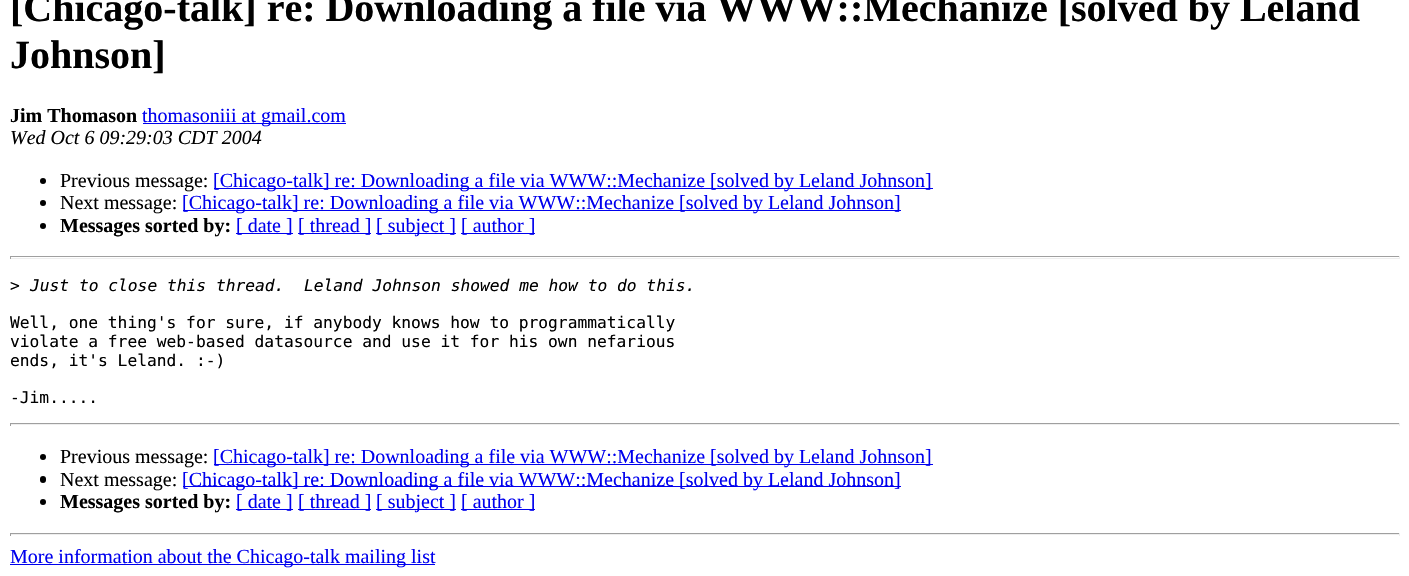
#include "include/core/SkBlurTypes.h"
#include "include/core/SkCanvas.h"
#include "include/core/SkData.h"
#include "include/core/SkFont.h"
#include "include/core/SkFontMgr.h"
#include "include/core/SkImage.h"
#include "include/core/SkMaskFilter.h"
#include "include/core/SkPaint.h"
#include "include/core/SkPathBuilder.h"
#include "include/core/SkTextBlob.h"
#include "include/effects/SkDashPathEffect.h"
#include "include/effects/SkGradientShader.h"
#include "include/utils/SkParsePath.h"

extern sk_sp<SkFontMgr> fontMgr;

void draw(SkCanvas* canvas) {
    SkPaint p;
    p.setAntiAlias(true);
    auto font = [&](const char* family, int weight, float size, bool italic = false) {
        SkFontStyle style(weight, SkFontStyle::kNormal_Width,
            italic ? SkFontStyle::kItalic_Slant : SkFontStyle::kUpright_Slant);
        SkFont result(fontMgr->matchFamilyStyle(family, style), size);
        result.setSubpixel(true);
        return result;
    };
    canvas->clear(0xFFFFFFFF);
    auto font1 = font("Liberation Serif", 700, 40);
    p.setColor(0xFF000000);
    canvas->drawString("[Chicago-talk] re: Downloading a file via WWW::Mechanize [solved by Leland", 10, 21, font1, p);
    canvas->drawString("Johnson]", 10, 68, font1, p);
    auto font2 = font("Liberation Serif", 700, 20);
    canvas->drawString("Jim Thomason", 10, 122, font2, p);
    p.setColor(0xFF0000EE);
    canvas->drawRect(SkRect::MakeLTRB(143, 123, 346, 124), p);
    auto font3 = font("Liberation Serif", 400, 20);
    canvas->drawString("thomasoniii at gmail.com", 142, 122, font3, p);
    auto font4 = font("Liberation Serif", 400, 20, true);
    p.setColor(0xFF000000);
    canvas->drawString("Wed Oct 6 09:29:03 CDT 2004", 10, 144, font4, p);
    canvas->drawCircle(43, 181, 3, p);
    canvas->drawString("Previous message:", 60, 187, font3, p);
    p.setColor(0xFF0000EE);
    canvas->drawRect(SkRect::MakeLTRB(214, 188, 933, 189), p);
    canvas->drawString("[Chicago-talk] re: Downloading a file via WWW::Mechanize [solved by Leland Johnson]", 213, 187, font3, p);
    p.setColor(0xFF000000);
    canvas->drawCircle(43, 203, 3, p);
    canvas->drawString("Next message:", 60, 209, font3, p);
    p.setColor(0xFF0000EE);
    canvas->drawRect(SkRect::MakeLTRB(183, 210, 901, 211), p);
    canvas->drawString("[Chicago-talk] re: Downloading a file via WWW::Mechanize [solved by Leland Johnson]", 182, 209, font3, p);
    p.setColor(0xFF000000);
    canvas->drawCircle(43, 226, 3, p);
    canvas->drawString("Messages sorted by:", 60, 232, font2, p);
    p.setColor(0xFF0000EE);
    canvas->drawRect(SkRect::MakeLTRB(236, 233, 293, 234), p);
    canvas->drawString("[ date ]", 236, 232, font3, p);
    canvas->drawRect(SkRect::MakeLTRB(298, 233, 371, 234), p);
    canvas->drawString("[ thread ]", 298, 232, font3, p);
    canvas->drawRect(SkRect::MakeLTRB(376, 233, 456, 234), p);
    canvas->drawString("[ subject ]", 376, 232, font3, p);
    canvas->drawRect(SkRect::MakeLTRB(461, 233, 535, 234), p);
    canvas->drawString("[ author ]", 461, 232, font3, p);
    {
        const struct { float l, t, r, b; SkColor color; } items[] = {
            {10, 256, 1400, 257, 0xFF9F9F9F},
            {1399, 256, 1400, 259, 0xFFEEEEEE},
            {10, 258, 1400, 259, 0xFFEEEEEE},
            {10, 256, 11, 259, 0xFF9F9F9F},
        };
        for (auto [l, t, r, b, color] : items) {
            p.setColor(color);
            canvas->drawRect(SkRect::MakeLTRB(l, t, r, b), p);
        }
    }
    auto font5 = font("DejaVu Sans Mono", 400, 16.25f);
    p.setColor(0xFF000000);
    canvas->drawString(">", 10, 291, font5, p);
    auto font6 = font("DejaVu Sans Mono", 400, 16.25f, true);
    canvas->drawString("Just to close this thread.  Leland Johnson showed me how to do this.", 30, 291, font6, p);
    {
        const struct { const char* s; float x, y; } items[] = {
            {"Well, one thing's for sure, if anybody knows how to programmatically", 10, 328},
            {"violate a free web-based datasource and use it for his own nefarious", 10, 347},
            {"ends, it's Leland. :-)", 10, 366},
            {"-Jim.....", 10, 403},
        };
        for (auto [s, x, y] : items) {
            canvas->drawString(s, x, y, font5, p);
        }
    }
    {
        const struct { float l, t, r, b; SkColor color; } items[] = {
            {10, 423, 1400, 424, 0xFF9F9F9F},
            {1399, 423, 1400, 426, 0xFFEEEEEE},
            {10, 424, 1400, 425, 0xFFEEEEEE},
            {10, 423, 11, 426, 0xFF9F9F9F},
        };
        for (auto [l, t, r, b, color] : items) {
            p.setColor(color);
            canvas->drawRect(SkRect::MakeLTRB(l, t, r, b), p);
        }
    }
    p.setColor(0xFF000000);
    canvas->drawCircle(43, 457, 3, p);
    canvas->drawString("Previous message:", 60, 463, font3, p);
    p.setColor(0xFF0000EE);
    canvas->drawRect(SkRect::MakeLTRB(214, 464, 933, 465), p);
    canvas->drawString("[Chicago-talk] re: Downloading a file via WWW::Mechanize [solved by Leland Johnson]", 213, 463, font3, p);
    p.setColor(0xFF000000);
    canvas->drawRoundRect(SkRect::MakeLTRB(40, 476, 46, 483), 3, 3, p);
    canvas->drawString("Next message:", 60, 486, font3, p);
    p.setColor(0xFF0000EE);
    canvas->drawRect(SkRect::MakeLTRB(183, 486, 901, 487), p);
    canvas->drawString("[Chicago-talk] re: Downloading a file via WWW::Mechanize [solved by Leland Johnson]", 182, 486, font3, p);
    p.setColor(0xFF000000);
    canvas->drawCircle(43, 502, 3, p);
    canvas->drawString("Messages sorted by:", 60, 508, font2, p);
    p.setColor(0xFF0000EE);
    canvas->drawRect(SkRect::MakeLTRB(236, 509, 293, 510), p);
    canvas->drawString("[ date ]", 236, 508, font3, p);
    canvas->drawRect(SkRect::MakeLTRB(298, 509, 371, 510), p);
    canvas->drawString("[ thread ]", 298, 508, font3, p);
    canvas->drawRect(SkRect::MakeLTRB(376, 509, 456, 510), p);
    canvas->drawString("[ subject ]", 376, 508, font3, p);
    canvas->drawRect(SkRect::MakeLTRB(461, 509, 535, 510), p);
    canvas->drawString("[ author ]", 461, 508, font3, p);
    {
        const struct { float l, t, r, b; SkColor color; } items[] = {
            {10, 533, 1400, 534, 0xFF9F9F9F},
            {1399, 533, 1400, 536, 0xFFEEEEEE},
            {10, 534, 1400, 535, 0xFFEEEEEE},
            {10, 533, 11, 536, 0xFF9F9F9F},
            {10, 564, 435, 565, 0xFF0000EE},
        };
        for (auto [l, t, r, b, color] : items) {
            p.setColor(color);
            canvas->drawRect(SkRect::MakeLTRB(l, t, r, b), p);
        }
    }
    canvas->drawString("More information about the Chicago-talk mailing list", 10, 563, font3, p);
}
